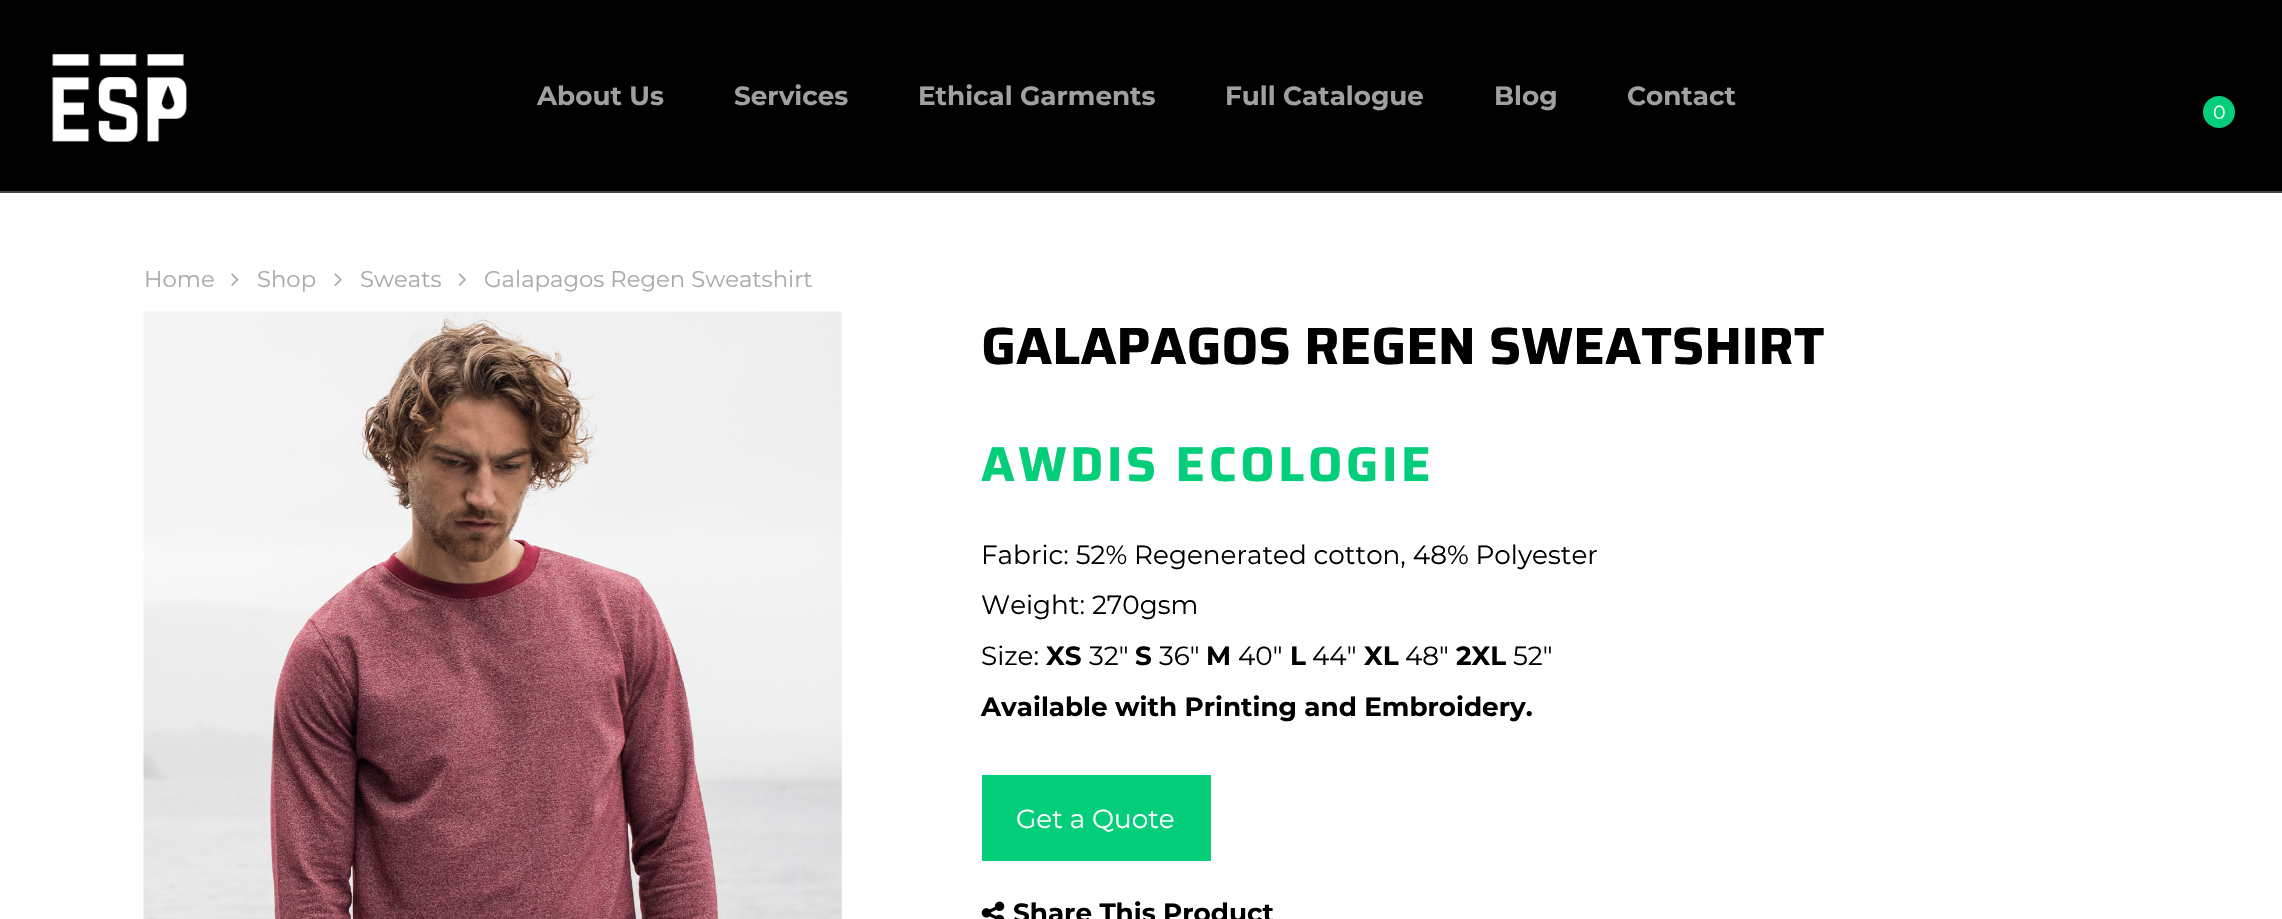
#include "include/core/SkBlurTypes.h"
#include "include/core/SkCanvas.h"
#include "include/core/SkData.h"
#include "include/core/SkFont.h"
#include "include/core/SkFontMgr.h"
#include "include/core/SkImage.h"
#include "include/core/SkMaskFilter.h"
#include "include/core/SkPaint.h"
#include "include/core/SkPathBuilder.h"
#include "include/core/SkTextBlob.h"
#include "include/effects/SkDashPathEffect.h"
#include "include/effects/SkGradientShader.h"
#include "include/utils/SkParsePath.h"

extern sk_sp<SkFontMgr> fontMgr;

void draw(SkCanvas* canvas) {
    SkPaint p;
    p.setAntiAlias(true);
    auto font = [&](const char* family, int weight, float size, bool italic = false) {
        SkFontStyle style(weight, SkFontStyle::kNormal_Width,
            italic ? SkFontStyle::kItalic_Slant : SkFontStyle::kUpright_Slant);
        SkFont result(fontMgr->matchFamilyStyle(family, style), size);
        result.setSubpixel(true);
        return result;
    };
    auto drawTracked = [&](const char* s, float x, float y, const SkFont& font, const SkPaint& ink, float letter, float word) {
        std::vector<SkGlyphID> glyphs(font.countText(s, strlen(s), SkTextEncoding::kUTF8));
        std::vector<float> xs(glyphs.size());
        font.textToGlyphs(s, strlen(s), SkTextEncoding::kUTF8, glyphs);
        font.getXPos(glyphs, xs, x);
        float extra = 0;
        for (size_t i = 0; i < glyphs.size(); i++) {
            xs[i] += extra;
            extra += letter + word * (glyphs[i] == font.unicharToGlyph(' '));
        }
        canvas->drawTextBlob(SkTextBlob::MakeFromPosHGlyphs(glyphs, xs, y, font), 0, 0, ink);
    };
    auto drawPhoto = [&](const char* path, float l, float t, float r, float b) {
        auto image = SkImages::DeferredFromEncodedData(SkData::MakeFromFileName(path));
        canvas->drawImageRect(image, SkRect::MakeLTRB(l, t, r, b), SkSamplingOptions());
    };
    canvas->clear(0xFF000000);
    p.setColor(0xFF464646);
    canvas->drawRect(SkRect::MakeLTRB(0, 191, 2282, 193), p);
    drawPhoto("media/1.png", 52, 54, 187, 142);
    auto font1 = font("Montserrat", 700, 26.25f);
    p.setColor(0xFFA0A0A0);
    {
        const struct { const char* s; float x, y; } items[] = {
            {"About Us", 537, 105},
            {"Services", 734, 105},
            {"Ethical Garments", 918, 105},
            {"Full Catalogue", 1225, 105},
            {"Blog", 1494, 105},
            {"Contact", 1627, 105},
        };
        for (auto [s, x, y] : items) {
            canvas->drawString(s, x, y, font1, p);
        }
    }
    p.setColor(0xFF05CE7B);
    canvas->drawCircle(2219, 112, 16, p);
    auto font2 = font("Montserrat", 400, 19);
    p.setColor(0xFFFFFFFF);
    canvas->drawString("0", 2213, 119, font2, p);
    canvas->drawRect(SkRect::MakeLTRB(0, 193, 2282, 919), p);
    auto font3 = font("Montserrat", 400, 22.75f);
    p.setColor(0xFFAAAAAA);
    canvas->drawString("Home", 144, 287, font3, p);
    drawPhoto("media/2.png", 231, 273, 239, 286);
    canvas->drawString("Shop", 257, 287, font3, p);
    drawPhoto("media/3.png", 334, 273, 342, 286);
    canvas->drawString("Sweats", 360, 287, font3, p);
    drawPhoto("media/4.png", 458, 273, 466, 286);
    canvas->drawString("Galapagos Regen Sweatshirt", 484, 287, font3, p);
    drawPhoto("media/5.png", 143, 311, 842, 919);
    auto font4 = font("Saira", 700, 52.5f);
    p.setColor(0xFF000000);
    canvas->drawString("GALAPAGOS REGEN SWEATSHIRT", 981, 364, font4, p);
    auto font5 = font("Saira", 700, 49);
    p.setColor(0xFF05CE7B);
    drawTracked("AWDIS ECOLOGIE", 981, 481, font5, p, 3.5f, 0);
    auto font6 = font("Montserrat", 400, 26.25f);
    p.setColor(0xFF000000);
    {
        const struct { const char* s; float x, y; } items[] = {
            {"Fabric: 52% Regenerated cotton, 48% Polyester", 981, 564},
            {"Weight: 270gsm", 981, 614},
            {"Size:", 981, 665},
        };
        for (auto [s, x, y] : items) {
            canvas->drawString(s, x, y, font6, p);
        }
    }
    canvas->drawString("XS", 1046, 665, font1, p);
    canvas->drawString("32″", 1089, 665, font6, p);
    canvas->drawString("S", 1135, 665, font1, p);
    canvas->drawString("36″", 1159, 665, font6, p);
    canvas->drawString("M", 1206, 665, font1, p);
    canvas->drawString("40″", 1238, 665, font6, p);
    canvas->drawString("L", 1290, 665, font1, p);
    canvas->drawString("44″", 1312, 665, font6, p);
    canvas->drawString("XL", 1364, 665, font1, p);
    canvas->drawString("48″", 1405, 665, font6, p);
    canvas->drawString("2XL", 1456, 665, font1, p);
    canvas->drawString("52″", 1513, 665, font6, p);
    canvas->drawString("Available with Printing and Embroidery.", 981, 716, font1, p);
    p.setColor(0xFF05CE7B);
    canvas->drawRect(SkRect::MakeLTRB(982, 775, 1211, 861), p);
    p.setColor(0xFFFFFFFF);
    canvas->drawString("Get a Quote", 1016, 828, font6, p);
    drawPhoto("media/6.png", 981, 901, 1005, 919);
    p.setColor(0xFF000000);
    canvas->drawString("Share This Product", 1013, 922, font1, p);
}
